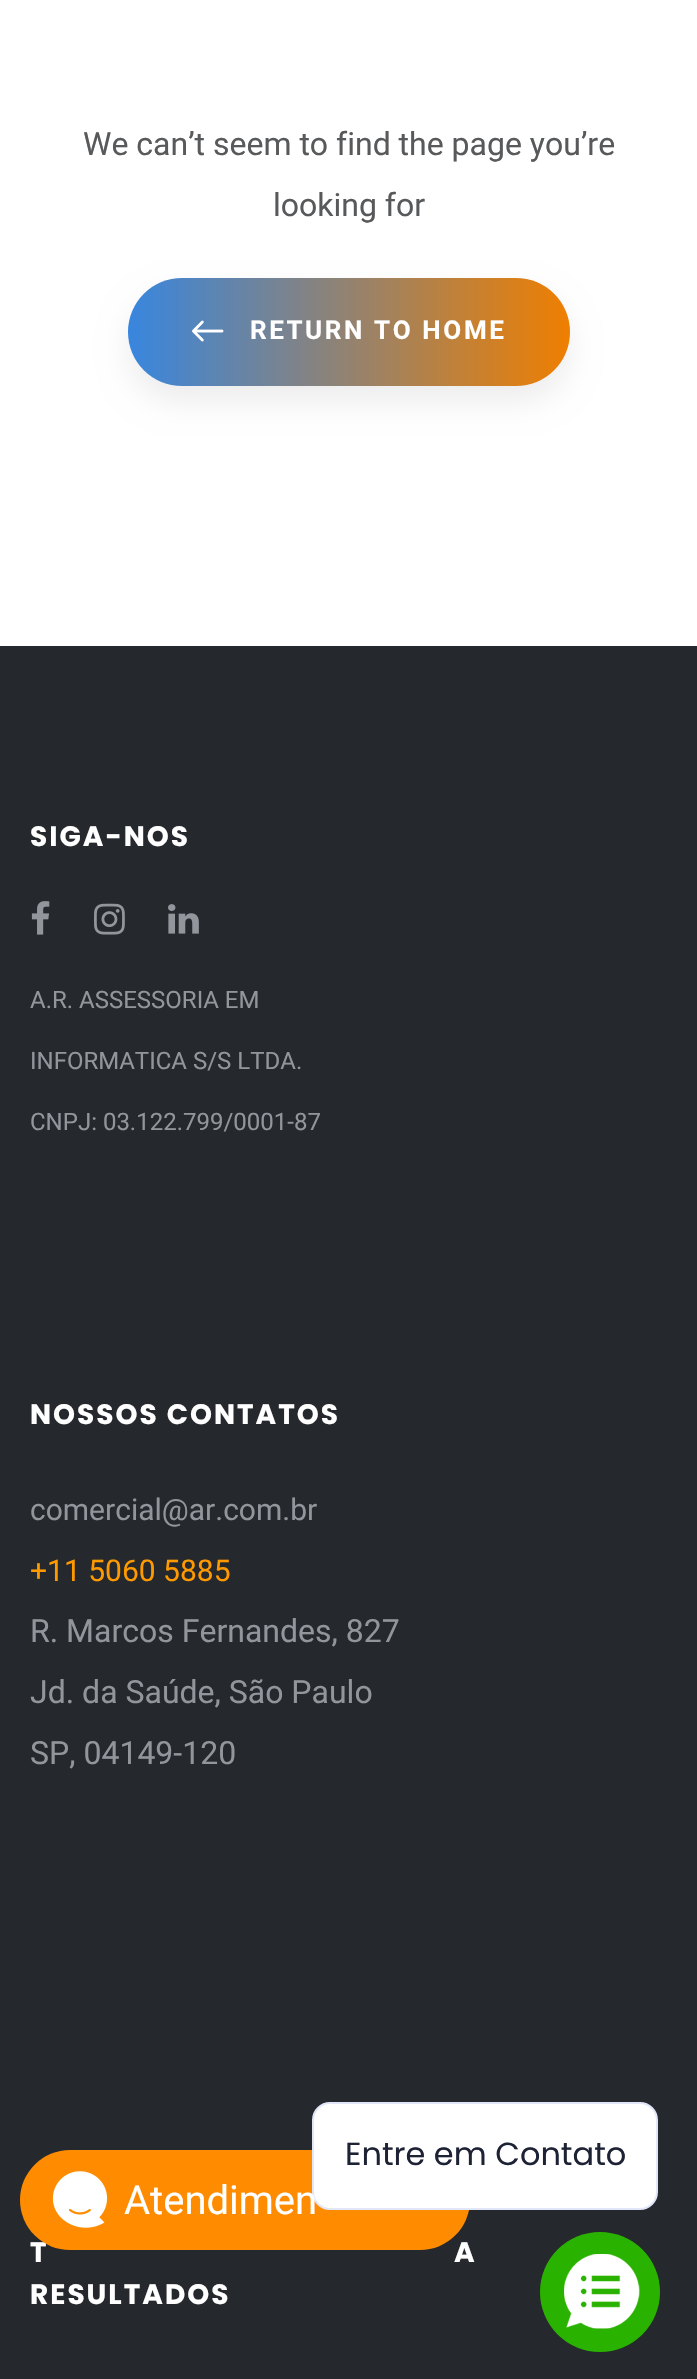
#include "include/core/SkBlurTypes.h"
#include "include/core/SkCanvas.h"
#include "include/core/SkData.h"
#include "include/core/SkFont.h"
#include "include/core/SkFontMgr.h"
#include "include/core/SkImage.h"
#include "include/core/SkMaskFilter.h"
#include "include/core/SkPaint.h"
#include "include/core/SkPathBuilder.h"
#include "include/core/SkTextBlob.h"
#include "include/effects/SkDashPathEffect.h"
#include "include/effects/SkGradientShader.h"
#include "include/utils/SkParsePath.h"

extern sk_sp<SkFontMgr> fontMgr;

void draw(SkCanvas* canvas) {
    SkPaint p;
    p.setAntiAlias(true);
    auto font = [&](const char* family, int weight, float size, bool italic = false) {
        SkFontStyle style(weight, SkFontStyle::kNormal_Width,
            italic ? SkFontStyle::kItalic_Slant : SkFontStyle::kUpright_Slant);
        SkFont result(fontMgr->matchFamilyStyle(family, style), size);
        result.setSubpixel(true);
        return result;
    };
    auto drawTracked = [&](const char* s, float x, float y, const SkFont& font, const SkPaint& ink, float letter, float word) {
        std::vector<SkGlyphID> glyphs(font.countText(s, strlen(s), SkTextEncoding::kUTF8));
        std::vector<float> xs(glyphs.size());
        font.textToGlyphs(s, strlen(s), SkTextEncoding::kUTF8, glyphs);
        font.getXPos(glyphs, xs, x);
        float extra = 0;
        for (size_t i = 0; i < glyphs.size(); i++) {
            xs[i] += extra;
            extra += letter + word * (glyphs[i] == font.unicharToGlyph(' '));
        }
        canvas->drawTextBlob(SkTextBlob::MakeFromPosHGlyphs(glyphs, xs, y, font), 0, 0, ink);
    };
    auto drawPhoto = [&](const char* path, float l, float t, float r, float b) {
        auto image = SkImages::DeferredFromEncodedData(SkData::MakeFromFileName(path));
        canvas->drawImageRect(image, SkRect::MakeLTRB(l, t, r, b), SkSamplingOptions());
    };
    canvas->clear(0xFFFFFFFF);
    auto font1 = font("Roboto", 400, 32);
    p.setColor(0xFF58595B);
    canvas->drawString("We can’t seem to find the page you’re", 83, 155, font1, p);
    canvas->drawString("looking for", 273, 216, font1, p);
    p.setColor(0x12000000);
    p.setMaskFilter(SkMaskFilter::MakeBlur(kNormal_SkBlurStyle, 15));
    canvas->drawRoundRect(SkRect::MakeLTRB(128, 294, 570, 402), 54, 54, p);
    p.setMaskFilter(nullptr);
    {
        const SkColor colors[] = {0xFF3886DF, 0xFFEF7F00};
        const float stops[] = {0, 1};
        const SkPoint ends[] = {{128, 332}, {570, 332}};
        p.setShader(SkGradientShader::MakeLinear(ends, colors, stops, 2, SkTileMode::kClamp));
        p.setAlpha(255);
    }
    canvas->drawRoundRect(SkRect::MakeLTRB(128, 278, 570, 386), 54, 54, p);
    drawPhoto("media/1.png", 192, 320, 224, 342);
    auto font2 = font("Roboto", 700, 26);
    p.setShader(nullptr);
    p.setColor(0xFFFFFFFF);
    drawTracked("RETURN TO HOME", 250, 339, font2, p, 2.6f, 0);
    p.setColor(0xFF25282D);
    canvas->drawRect(SkRect::MakeLTRB(0, 646, 697, 2379), p);
    auto font3 = font("Poppins", 700, 28);
    p.setColor(0xFFFFFFFF);
    drawTracked("SIGA-NOS", 30, 846, font3, p, 2, 0);
    drawPhoto("media/2.png", 31, 901, 50, 935);
    drawPhoto("media/3.png", 94, 903, 125, 935);
    drawPhoto("media/4.png", 168, 904, 199, 934);
    auto font4 = font("Roboto", 400, 24);
    p.setColor(0xFF92959B);
    {
        const struct { const char* s; float x, y; } items[] = {
            {"A.R. ASSESSORIA EM", 30, 1008},
            {"INFORMATICA S/S LTDA.", 30, 1069},
            {"CNPJ: 03.122.799/0001-87", 30, 1130},
        };
        for (auto [s, x, y] : items) {
            canvas->drawString(s, x, y, font4, p);
        }
    }
    p.setColor(0xFFFFFFFF);
    drawTracked("NOSSOS CONTATOS", 30, 1424, font3, p, 2, 0);
    auto font5 = font("Roboto", 400, 30);
    p.setColor(0xFF92959B);
    canvas->drawString("comercial@ar.com.br", 30, 1520, font5, p);
    p.setColor(0xFFFF9900);
    canvas->drawString("+11 5060 5885", 30, 1581, font5, p);
    p.setColor(0xFF92959B);
    {
        const struct { const char* s; float x, y; } items[] = {
            {"R. Marcos Fernandes, 827", 30, 1642},
            {"Jd. da Saúde, São Paulo", 30, 1703},
            {"SP, 04149-120", 30, 1764},
        };
        for (auto [s, x, y] : items) {
            canvas->drawString(s, x, y, font1, p);
        }
    }
    p.setColor(0xFFFFFFFF);
    {
        const struct { const char* s; float x, y; } items[] = {
            {"T", 30, 2262},
            {"A", 454, 2262},
            {"RESULTADOS", 30, 2304},
        };
        for (auto [s, x, y] : items) {
            drawTracked(s, x, y, font3, p, 2, 0);
        }
    }
    p.setColor(0xFFFF8C00);
    canvas->drawRoundRect(SkRect::MakeLTRB(20, 2150, 470, 2250), 50, 50, p);
    p.setColor(0xFFFFFFFF);
    canvas->drawRoundRect(SkRect::MakeLTRB(313, 2103, 657, 2209), 17, 17, p);
    p.setStyle(SkPaint::kStroke_Style);
    p.setStrokeWidth(2);
    p.setColor(0xFFE1E6F9);
    canvas->drawRoundRect(SkRect::MakeLTRB(313, 2103, 657, 2209), 17, 17, p);
    auto font6 = font("Poppins", 400, 32);
    p.setStyle(SkPaint::kFill_Style);
    p.setColor(0xFF1E2235);
    canvas->drawString("Entre em Contato", 345, 2165, font6, p);
    p.setColor(0xFF2AB200);
    canvas->drawCircle(600, 2292, 60, p);
    drawPhoto("media/5.png", 564, 2254, 640, 2329);
    drawPhoto("media/6.png", 52, 2171, 108, 2228);
    auto font7 = font("Roboto", 400, 40);
    p.setColor(0xFFFFFFFF);
    canvas->drawString("Atendimen", 124, 2214, font7, p);
}
